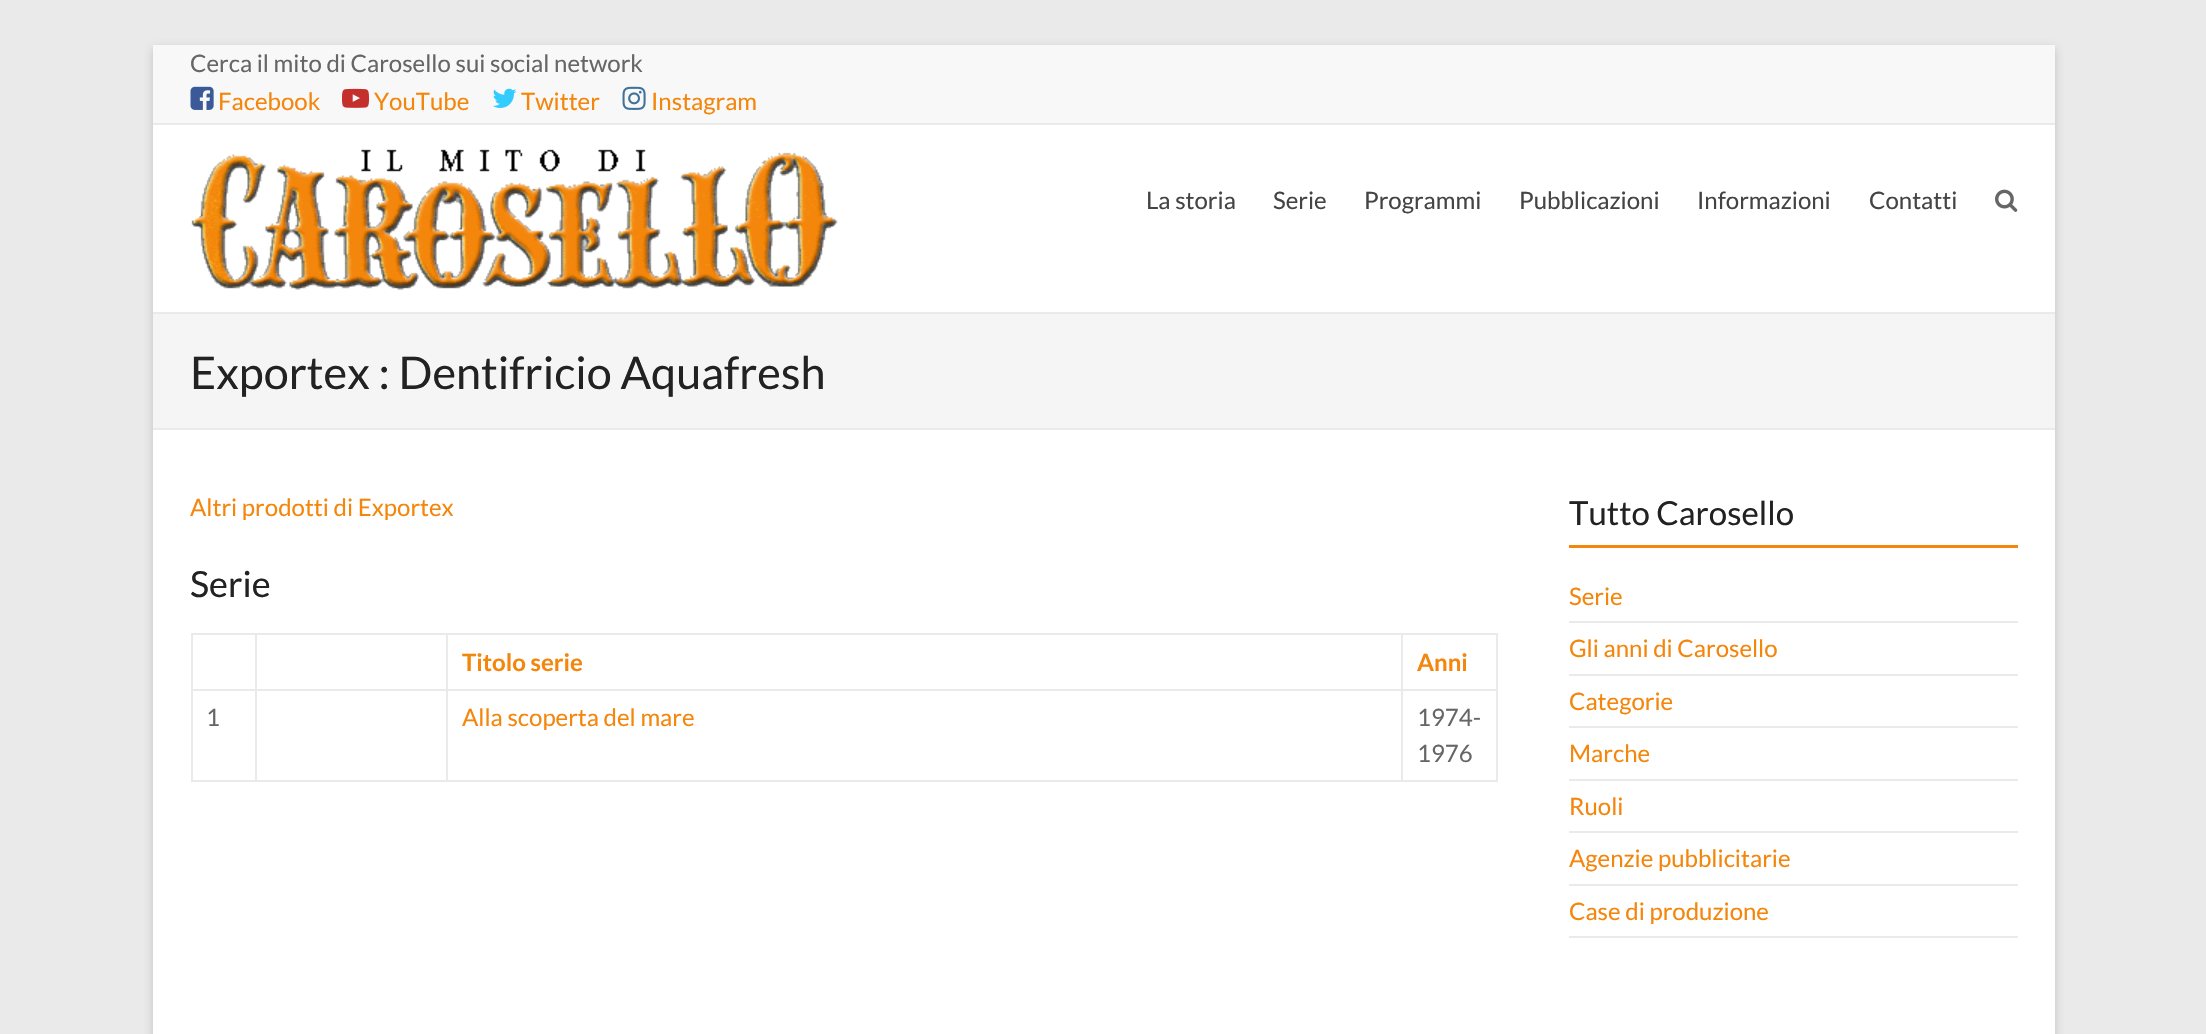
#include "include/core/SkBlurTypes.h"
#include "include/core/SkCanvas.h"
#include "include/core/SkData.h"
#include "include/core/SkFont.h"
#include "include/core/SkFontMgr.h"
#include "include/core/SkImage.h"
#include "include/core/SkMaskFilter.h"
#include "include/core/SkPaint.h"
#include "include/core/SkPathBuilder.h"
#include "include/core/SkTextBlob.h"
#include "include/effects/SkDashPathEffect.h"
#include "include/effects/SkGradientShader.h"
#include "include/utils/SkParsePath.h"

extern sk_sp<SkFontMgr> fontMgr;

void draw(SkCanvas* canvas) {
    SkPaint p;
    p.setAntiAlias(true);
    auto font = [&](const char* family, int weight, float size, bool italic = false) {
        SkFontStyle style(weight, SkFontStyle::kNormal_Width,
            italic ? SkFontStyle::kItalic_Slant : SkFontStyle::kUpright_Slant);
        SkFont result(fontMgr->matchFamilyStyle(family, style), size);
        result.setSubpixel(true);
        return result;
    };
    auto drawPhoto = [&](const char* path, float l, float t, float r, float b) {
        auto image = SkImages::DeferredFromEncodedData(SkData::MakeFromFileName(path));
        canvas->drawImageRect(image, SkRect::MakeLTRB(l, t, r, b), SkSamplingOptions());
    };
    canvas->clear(0xFFEAEAEA);
    p.setColor(0x4D646464);
    p.setMaskFilter(SkMaskFilter::MakeBlur(kNormal_SkBlurStyle, 4.5f));
    canvas->drawRect(SkRect::MakeLTRB(153, 48, 2055, 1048), p);
    p.setMaskFilter(nullptr);
    {
        const struct { float l, t, r, b; SkColor color; } items[] = {
            {153, 125, 2055, 1034, 0xFFFFFFFF},
            {153, 45, 2055, 123, 0xFFF8F8F8},
            {153, 123, 2055, 125, 0xFFEAEAEA},
        };
        for (auto [l, t, r, b, color] : items) {
            p.setColor(color);
            canvas->drawRect(SkRect::MakeLTRB(l, t, r, b), p);
        }
    }
    auto font1 = font("Lato", 400, 24);
    p.setColor(0xFF666666);
    canvas->drawString("Cerca il mito di Carosello sui social network", 190, 72, font1, p);
    drawPhoto("media/1.png", 190, 86, 214, 110);
    p.setColor(0xFFF4860B);
    canvas->drawString("Facebook", 218, 110, font1, p);
    drawPhoto("media/2.png", 342, 88, 369, 108);
    canvas->drawString("YouTube", 374, 110, font1, p);
    drawPhoto("media/3.png", 492, 88, 517, 108);
    canvas->drawString("Twitter", 521, 110, font1, p);
    drawPhoto("media/4.png", 622, 86, 646, 110);
    canvas->drawString("Instagram", 651, 110, font1, p);
    p.setColor(0xFFEAEAEA);
    canvas->drawRect(SkRect::MakeLTRB(153, 312, 2055, 314), p);
    drawPhoto("media/5.png", 191, 149, 838, 290);
    p.setColor(0xFF444444);
    {
        const struct { const char* s; float x, y; } items[] = {
            {"La storia", 1146, 209},
            {"Serie", 1273, 209},
            {"Programmi", 1364, 209},
            {"Pubblicazioni", 1519, 209},
            {"Informazioni", 1697, 209},
            {"Contatti", 1869, 209},
        };
        for (auto [s, x, y] : items) {
            canvas->drawString(s, x, y, font1, p);
        }
    }
    drawPhoto("media/6.png", 1995, 189, 2018, 212);
    p.setColor(0xFFF5F5F5);
    canvas->drawRect(SkRect::MakeLTRB(153, 314, 2055, 428), p);
    p.setColor(0xFFEAEAEA);
    canvas->drawRect(SkRect::MakeLTRB(153, 428, 2055, 430), p);
    auto font2 = font("Lato", 400, 45);
    p.setColor(0xFF222222);
    canvas->drawString("Exportex : Dentifricio Aquafresh", 190, 389, font2, p);
    p.setColor(0xFFF4860B);
    canvas->drawString("Altri prodotti di Exportex", 190, 516, font1, p);
    auto font3 = font("Lato", 400, 36);
    p.setColor(0xFF222222);
    canvas->drawString("Serie", 190, 597, font3, p);
    {
        const struct { float l, t, r, b; SkColor color; } items[] = {
            {1401, 633, 1497, 635, 0xFFEAEAEA},
            {1401, 689, 1497, 691, 0xFFEAEAEA},
            {1496, 689, 1498, 782, 0xFFEAEAEA},
            {1401, 780, 1497, 782, 0xFFEAEAEA},
            {1401, 689, 1403, 782, 0xFFEAEAEA},
            {446, 689, 1403, 691, 0xFFEAEAEA},
            {1401, 633, 1403, 690, 0xFFEAEAEA},
            {446, 633, 1403, 635, 0xFFEAEAEA},
            {446, 780, 1403, 782, 0xFFEAEAEA},
            {446, 689, 448, 782, 0xFFEAEAEA},
            {255, 689, 447, 691, 0xFFEAEAEA},
            {446, 633, 448, 690, 0xFFEAEAEA},
            {255, 633, 447, 635, 0xFFEAEAEA},
            {255, 780, 447, 782, 0xFFEAEAEA},
            {255, 689, 257, 782, 0xFFEAEAEA},
            {191, 689, 257, 691, 0xFFEAEAEA},
            {255, 633, 257, 690, 0xFFEAEAEA},
            {191, 633, 257, 635, 0xFFEAEAEA},
            {191, 780, 257, 782, 0xFFEAEAEA},
            {191, 689, 193, 782, 0xFFEAEAEA},
            {191, 633, 193, 690, 0xFFEAEAEA},
        };
        for (auto [l, t, r, b, color] : items) {
            p.setColor(color);
            canvas->drawRect(SkRect::MakeLTRB(l, t, r, b), p);
        }
    }
    auto font4 = font("Lato", 700, 24);
    p.setColor(0xFFF4860B);
    canvas->drawString("Titolo serie", 462, 671, font4, p);
    p.setColor(0xFFEAEAEA);
    canvas->drawRect(SkRect::MakeLTRB(1496, 633, 1498, 690), p);
    p.setColor(0xFFF4860B);
    canvas->drawString("Anni", 1417, 671, font4, p);
    p.setColor(0xFF666666);
    canvas->drawString("1", 206, 726, font1, p);
    p.setColor(0xFFF4860B);
    canvas->drawString("Alla scoperta del mare", 462, 726, font1, p);
    p.setColor(0xFF666666);
    canvas->drawString("1974-", 1417, 726, font1, p);
    canvas->drawString("1976", 1417, 762, font1, p);
    p.setColor(0xFFF4860B);
    canvas->drawRect(SkRect::MakeLTRB(1569, 545, 2018, 548), p);
    auto font5 = font("Lato", 400, 33);
    p.setColor(0xFF222222);
    canvas->drawString("Tutto Carosello", 1569, 525, font5, p);
    p.setColor(0xFFEAEAEA);
    canvas->drawRect(SkRect::MakeLTRB(1569, 621, 2018, 623), p);
    p.setColor(0xFFF4860B);
    canvas->drawString("Serie", 1569, 605, font1, p);
    p.setColor(0xFFEAEAEA);
    canvas->drawRect(SkRect::MakeLTRB(1569, 674, 2018, 676), p);
    p.setColor(0xFFF4860B);
    canvas->drawString("Gli anni di Carosello", 1569, 657, font1, p);
    p.setColor(0xFFEAEAEA);
    canvas->drawRect(SkRect::MakeLTRB(1569, 726, 2018, 728), p);
    p.setColor(0xFFF4860B);
    canvas->drawString("Categorie", 1569, 710, font1, p);
    p.setColor(0xFFEAEAEA);
    canvas->drawRect(SkRect::MakeLTRB(1569, 779, 2018, 781), p);
    p.setColor(0xFFF4860B);
    canvas->drawString("Marche", 1569, 762, font1, p);
    p.setColor(0xFFEAEAEA);
    canvas->drawRect(SkRect::MakeLTRB(1569, 831, 2018, 833), p);
    p.setColor(0xFFF4860B);
    canvas->drawString("Ruoli", 1569, 815, font1, p);
    p.setColor(0xFFEAEAEA);
    canvas->drawRect(SkRect::MakeLTRB(1569, 884, 2018, 886), p);
    p.setColor(0xFFF4860B);
    canvas->drawString("Agenzie pubblicitarie", 1569, 867, font1, p);
    p.setColor(0xFFEAEAEA);
    canvas->drawRect(SkRect::MakeLTRB(1569, 936, 2018, 938), p);
    p.setColor(0xFFF4860B);
    canvas->drawString("Case di produzione", 1569, 920, font1, p);
}
